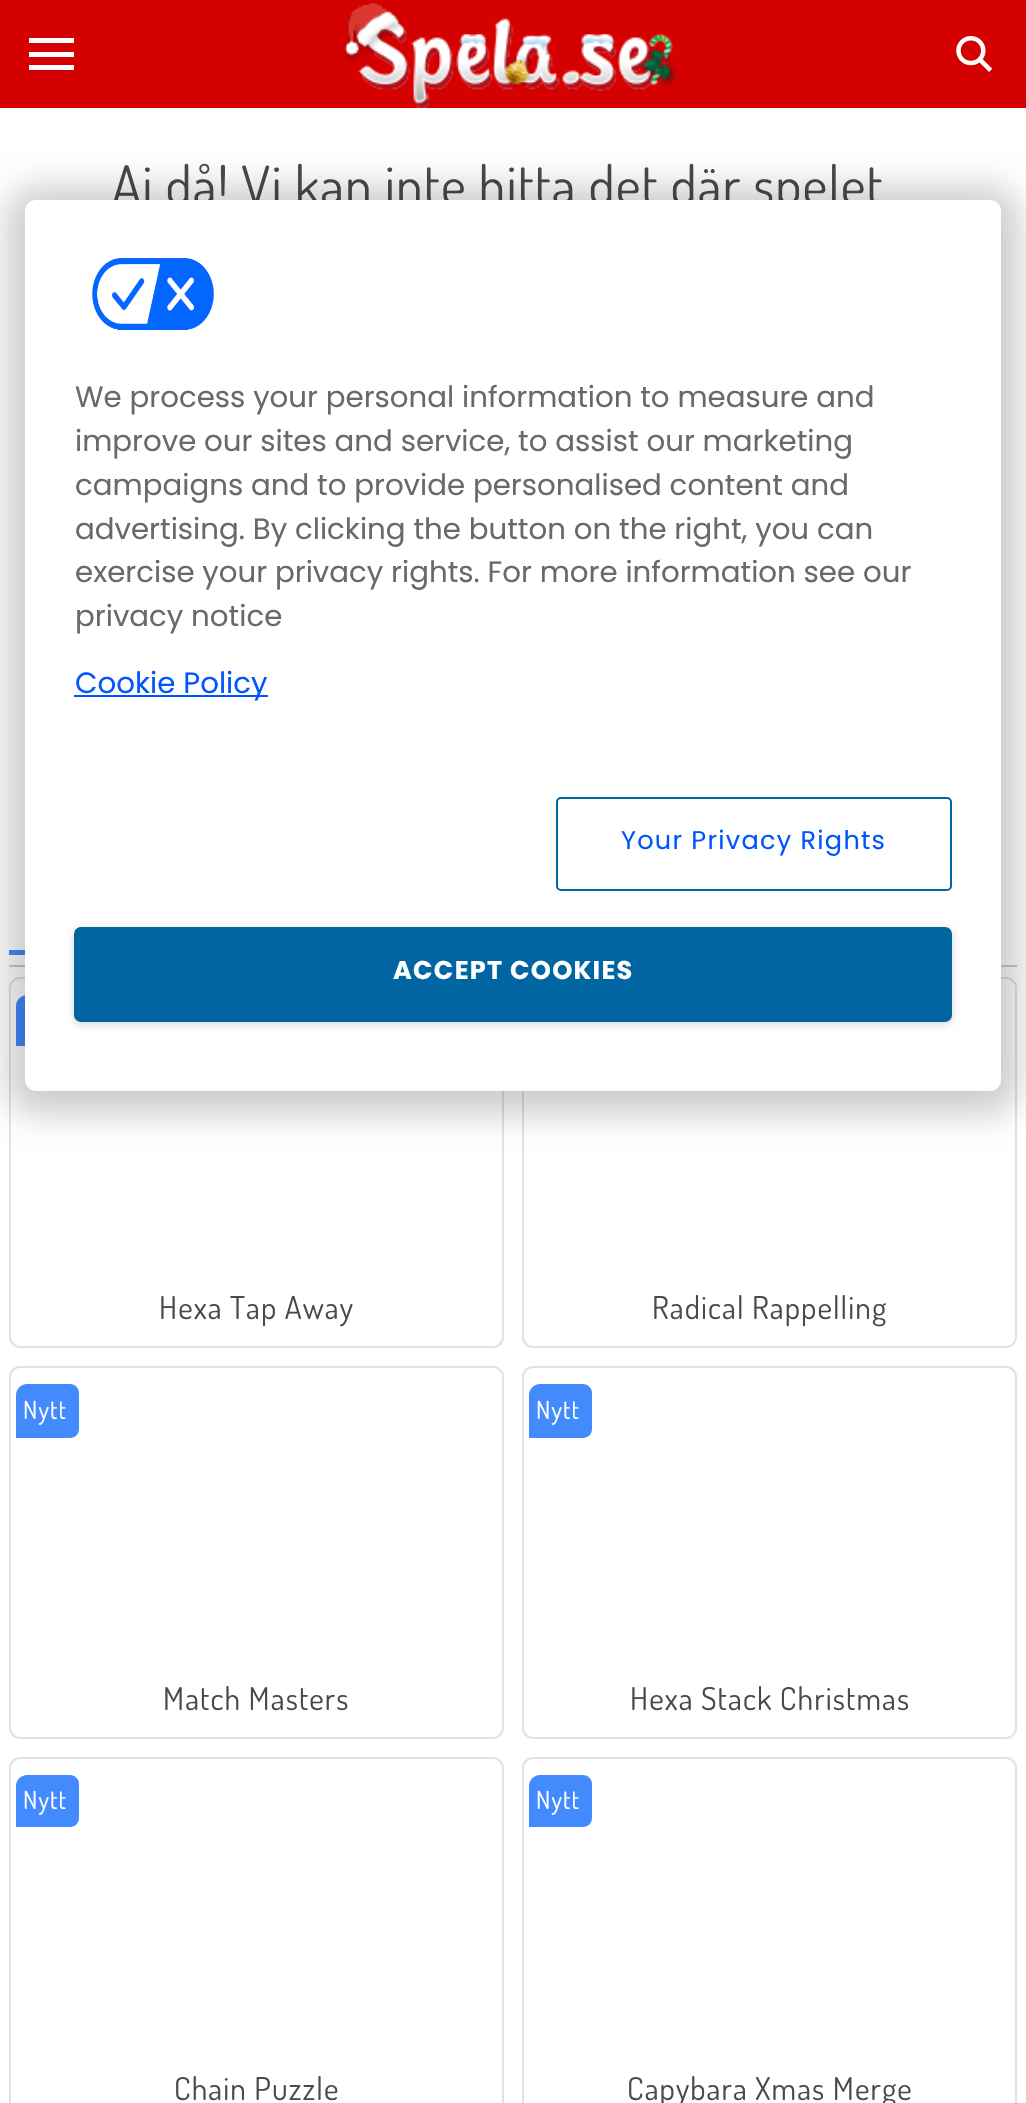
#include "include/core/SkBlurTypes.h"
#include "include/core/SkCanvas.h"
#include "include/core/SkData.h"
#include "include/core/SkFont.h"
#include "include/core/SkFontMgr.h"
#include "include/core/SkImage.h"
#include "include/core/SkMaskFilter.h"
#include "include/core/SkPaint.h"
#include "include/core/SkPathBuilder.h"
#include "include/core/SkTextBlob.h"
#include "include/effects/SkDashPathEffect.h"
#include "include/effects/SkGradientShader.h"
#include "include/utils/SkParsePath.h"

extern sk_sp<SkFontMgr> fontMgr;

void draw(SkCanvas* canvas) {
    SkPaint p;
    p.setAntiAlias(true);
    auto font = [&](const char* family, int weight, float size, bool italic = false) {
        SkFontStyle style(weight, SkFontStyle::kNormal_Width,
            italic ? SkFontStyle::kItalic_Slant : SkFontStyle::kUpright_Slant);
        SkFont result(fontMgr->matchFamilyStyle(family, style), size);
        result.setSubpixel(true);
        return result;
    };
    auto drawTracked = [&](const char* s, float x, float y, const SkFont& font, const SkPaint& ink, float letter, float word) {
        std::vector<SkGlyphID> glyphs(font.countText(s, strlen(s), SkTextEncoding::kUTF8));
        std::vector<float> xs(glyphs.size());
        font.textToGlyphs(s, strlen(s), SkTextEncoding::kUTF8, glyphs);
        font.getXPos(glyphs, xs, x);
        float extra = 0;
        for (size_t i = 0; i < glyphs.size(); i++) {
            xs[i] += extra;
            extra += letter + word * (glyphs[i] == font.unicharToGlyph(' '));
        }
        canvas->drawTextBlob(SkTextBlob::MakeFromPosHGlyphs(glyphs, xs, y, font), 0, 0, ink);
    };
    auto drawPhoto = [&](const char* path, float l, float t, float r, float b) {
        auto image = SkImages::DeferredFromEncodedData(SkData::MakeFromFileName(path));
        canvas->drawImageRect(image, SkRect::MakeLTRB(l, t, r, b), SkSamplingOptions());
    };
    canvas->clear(0xFFD50000);
    {
        const struct { float l, t, r, b; SkColor color; } items[] = {
            {29, 38, 74, 43, 0xFFFFFFFF},
            {29, 52, 74, 57, 0xFFFFFFFF},
            {29, 65, 74, 70, 0xFFFFFFFF},
        };
        for (auto [l, t, r, b, color] : items) {
            p.setColor(color);
            canvas->drawRect(SkRect::MakeLTRB(l, t, r, b), p);
        }
    }
    drawPhoto("media/1.png", 344, 3, 677, 108);
    drawPhoto("media/2.png", 956, 36, 993, 72);
    canvas->drawRect(SkRect::MakeLTRB(0, 108, 1026, 2103), p);
    auto font1 = font("Dosis", 400, 54);
    p.setColor(0xFF4A4A4A);
    drawTracked("Aj då! Vi kan inte hitta det där spelet", 112, 205, font1, p, 1.1f, 0);
    p.setColor(0xFFCCCCCC);
    canvas->drawRect(SkRect::MakeLTRB(9, 965, 1017, 967), p);
    p.setColor(0xFF438AFE);
    canvas->drawRect(SkRect::MakeLTRB(9, 950, 25, 955), p);
    p.setStyle(SkPaint::kStroke_Style);
    p.setStrokeWidth(2);
    p.setColor(0xFFE2E2E2);
    canvas->drawRoundRect(SkRect::MakeLTRB(10, 978, 503, 1347), 10, 10, p);
    p.setStyle(SkPaint::kFill_Style);
    p.setColor(0xFF438AFE);
    canvas->drawPath(SkPathBuilder().moveTo(27, 995).lineTo(70, 995).cubicTo(75, 995, 79, 999, 79, 1004).lineTo(79, 1037).cubicTo(79, 1042, 75, 1046, 70, 1046).lineTo(16, 1046).lineTo(16, 1006).cubicTo(16, 1000, 21, 995, 27, 995).close().detach(), p);
    auto font2 = font("Dosis", 400, 31.5f);
    p.setColor(0xFF4A4A4A);
    drawTracked("Hexa Tap Away", 159, 1319, font2, p, 1.1f, 0);
    p.setStyle(SkPaint::kStroke_Style);
    p.setColor(0xFFE2E2E2);
    canvas->drawRoundRect(SkRect::MakeLTRB(523, 978, 1016, 1347), 10, 10, p);
    p.setStyle(SkPaint::kFill_Style);
    p.setColor(0xFF4A4A4A);
    drawTracked("Radical Rappelling", 652, 1319, font2, p, 1.1f, 0);
    p.setStyle(SkPaint::kStroke_Style);
    p.setColor(0xFFE2E2E2);
    canvas->drawRoundRect(SkRect::MakeLTRB(10, 1367, 503, 1738), 10, 10, p);
    p.setStyle(SkPaint::kFill_Style);
    p.setColor(0xFF438AFE);
    canvas->drawPath(SkPathBuilder().moveTo(27, 1384).lineTo(70, 1384).cubicTo(75, 1384, 79, 1388, 79, 1393).lineTo(79, 1429).cubicTo(79, 1434, 75, 1438, 70, 1438).lineTo(16, 1438).lineTo(16, 1395).cubicTo(16, 1389, 21, 1384, 27, 1384).close().detach(), p);
    auto font3 = font("Dosis", 400, 25);
    p.setColor(0xFFFFFFFF);
    drawTracked("Nytt", 23, 1419, font3, p, 1.1f, 0);
    p.setColor(0xFF4A4A4A);
    drawTracked("Match Masters", 163, 1710, font2, p, 1.1f, 0);
    p.setStyle(SkPaint::kStroke_Style);
    p.setColor(0xFFE2E2E2);
    canvas->drawRoundRect(SkRect::MakeLTRB(523, 1367, 1016, 1738), 10, 10, p);
    p.setStyle(SkPaint::kFill_Style);
    p.setColor(0xFF438AFE);
    canvas->drawPath(SkPathBuilder().moveTo(540, 1384).lineTo(583, 1384).cubicTo(588, 1384, 592, 1388, 592, 1393).lineTo(592, 1429).cubicTo(592, 1434, 588, 1438, 583, 1438).lineTo(529, 1438).lineTo(529, 1395).cubicTo(529, 1389, 534, 1384, 540, 1384).close().detach(), p);
    p.setColor(0xFFFFFFFF);
    drawTracked("Nytt", 536, 1419, font3, p, 1.1f, 0);
    p.setColor(0xFF4A4A4A);
    drawTracked("Hexa Stack Christmas", 630, 1710, font2, p, 1.1f, 0);
    p.setStyle(SkPaint::kStroke_Style);
    p.setColor(0xFFE2E2E2);
    canvas->drawRoundRect(SkRect::MakeLTRB(10, 1758, 503, 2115), 10, 10, p);
    p.setStyle(SkPaint::kFill_Style);
    p.setColor(0xFF438AFE);
    canvas->drawPath(SkPathBuilder().moveTo(27, 1775).lineTo(70, 1775).cubicTo(75, 1775, 79, 1779, 79, 1784).lineTo(79, 1818).cubicTo(79, 1823, 75, 1827, 70, 1827).lineTo(16, 1827).lineTo(16, 1786).cubicTo(16, 1780, 21, 1775, 27, 1775).close().detach(), p);
    p.setColor(0xFFFFFFFF);
    drawTracked("Nytt", 23, 1809, font3, p, 1.1f, 0);
    p.setColor(0xFF4A4A4A);
    drawTracked("Chain Puzzle", 174, 2100, font2, p, 1.1f, 0);
    p.setStyle(SkPaint::kStroke_Style);
    p.setColor(0xFFE2E2E2);
    canvas->drawRoundRect(SkRect::MakeLTRB(523, 1758, 1016, 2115), 10, 10, p);
    p.setStyle(SkPaint::kFill_Style);
    p.setColor(0xFF438AFE);
    canvas->drawPath(SkPathBuilder().moveTo(540, 1775).lineTo(583, 1775).cubicTo(588, 1775, 592, 1779, 592, 1784).lineTo(592, 1818).cubicTo(592, 1823, 588, 1827, 583, 1827).lineTo(529, 1827).lineTo(529, 1786).cubicTo(529, 1780, 534, 1775, 540, 1775).close().detach(), p);
    p.setColor(0xFFFFFFFF);
    drawTracked("Nytt", 536, 1809, font3, p, 1.1f, 0);
    p.setColor(0xFF4A4A4A);
    drawTracked("Capybara Xmas Merge", 627, 2100, font2, p, 1.1f, 0);
    p.setColor(0x33000000);
    p.setMaskFilter(SkMaskFilter::MakeBlur(kNormal_SkBlurStyle, 17));
    canvas->drawRoundRect(SkRect::MakeLTRB(7, 187, 1019, 1114), 29, 29, p);
    p.setMaskFilter(nullptr);
    p.setColor(0xFFFFFFFF);
    canvas->drawRoundRect(SkRect::MakeLTRB(25, 200, 1001, 1091), 11, 11, p);
    drawPhoto("media/3.png", 92, 258, 214, 331);
    auto font4 = font("Poppins", 400, 29.25f);
    p.setColor(0xFF696969);
    {
        const struct { const char* s; float x, y; } items[] = {
            {"We process your personal information to measure and", 75, 407},
            {"improve our sites and service, to assist our marketing", 75, 451},
            {"campaigns and to provide personalised content and", 75, 495},
            {"advertising. By clicking the button on the right, you can", 75, 539},
            {"exercise your privacy rights. For more information see our", 75, 582},
            {"privacy notice", 75, 626},
        };
        for (auto [s, x, y] : items) {
            canvas->drawString(s, x, y, font4, p);
        }
    }
    p.setColor(0xFF0055FF);
    canvas->drawRect(SkRect::MakeLTRB(74, 695, 268, 697), p);
    canvas->drawString("Cookie Policy", 75, 693, font4, p);
    p.setStyle(SkPaint::kStroke_Style);
    p.setColor(0xFF0065A0);
    canvas->drawRoundRect(SkRect::MakeLTRB(557, 798, 951, 890), 4, 4, p);
    auto font5 = font("Poppins", 400, 25.6f);
    p.setStyle(SkPaint::kFill_Style);
    p.setColor(0xFF0055FF);
    drawTracked("Your Privacy Rights", 621, 849, font5, p, 1.25f, 0);
    p.setColor(0x29000000);
    p.setMaskFilter(SkMaskFilter::MakeBlur(kNormal_SkBlurStyle, 4.5f));
    canvas->drawRoundRect(SkRect::MakeLTRB(74, 929, 952, 1024), 7, 7, p);
    p.setMaskFilter(nullptr);
    p.setColor(0xFF0065A0);
    canvas->drawRoundRect(SkRect::MakeLTRB(75, 928, 951, 1021), 6, 6, p);
    p.setStyle(SkPaint::kStroke_Style);
    canvas->drawRoundRect(SkRect::MakeLTRB(75, 928, 951, 1021), 6, 6, p);
    auto font6 = font("Poppins", 700, 25.6f);
    p.setStyle(SkPaint::kFill_Style);
    p.setColor(0xFFFFFFFF);
    drawTracked("ACCEPT COOKIES", 393, 979, font6, p, 1.25f, 0);
}
